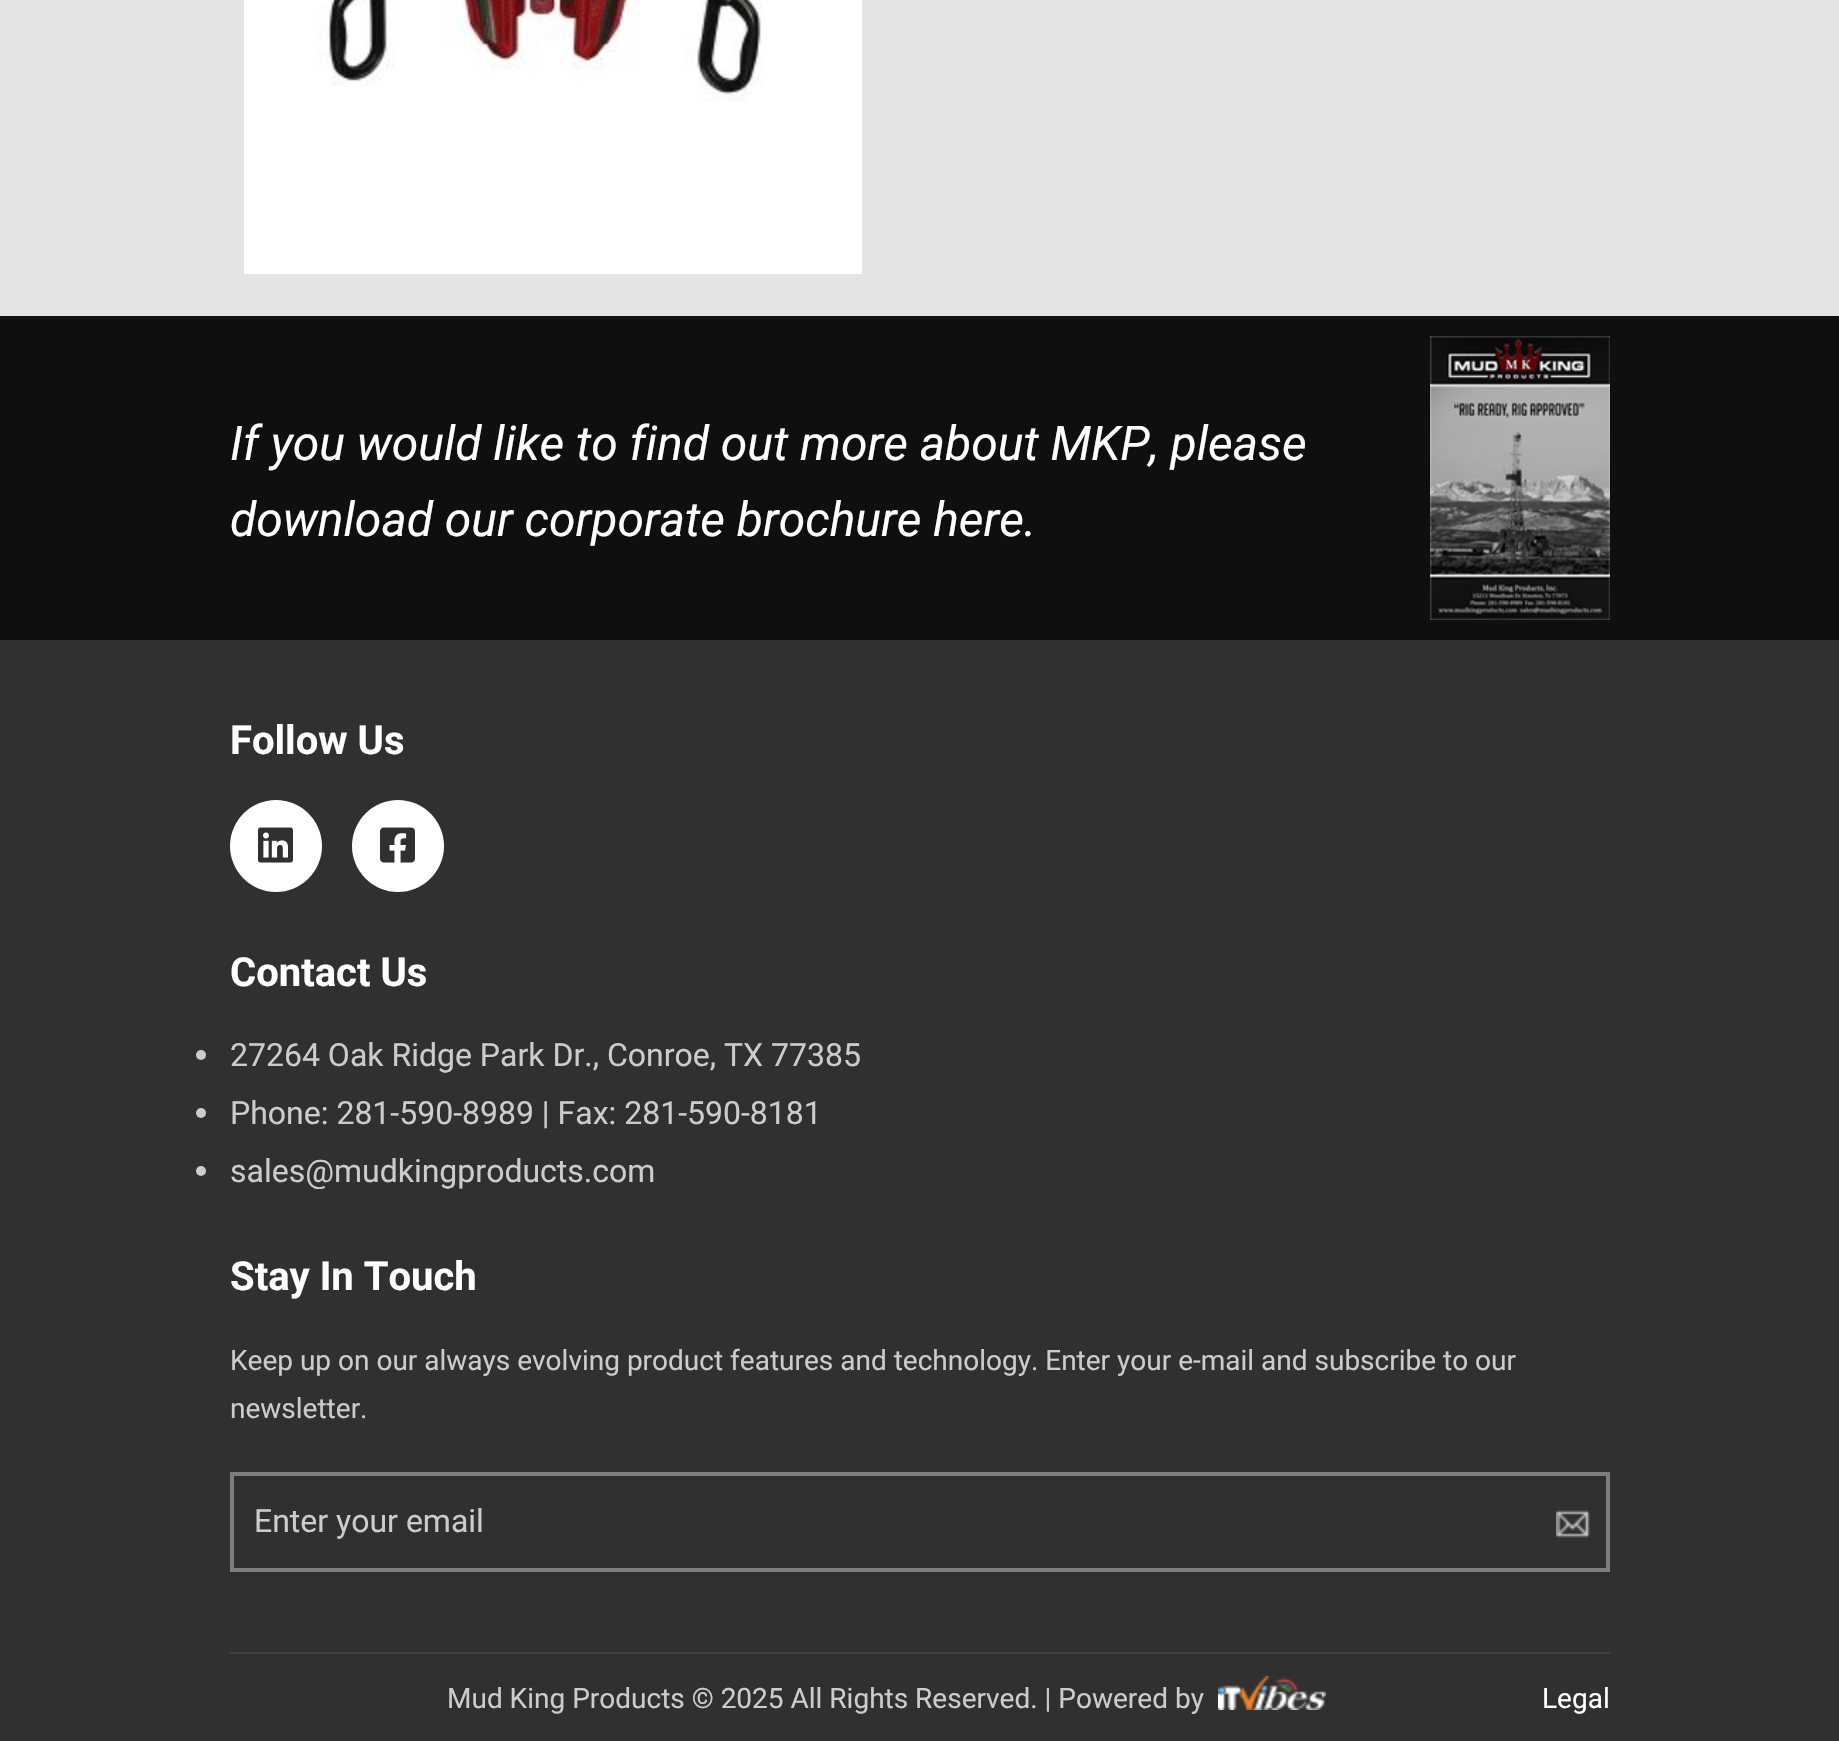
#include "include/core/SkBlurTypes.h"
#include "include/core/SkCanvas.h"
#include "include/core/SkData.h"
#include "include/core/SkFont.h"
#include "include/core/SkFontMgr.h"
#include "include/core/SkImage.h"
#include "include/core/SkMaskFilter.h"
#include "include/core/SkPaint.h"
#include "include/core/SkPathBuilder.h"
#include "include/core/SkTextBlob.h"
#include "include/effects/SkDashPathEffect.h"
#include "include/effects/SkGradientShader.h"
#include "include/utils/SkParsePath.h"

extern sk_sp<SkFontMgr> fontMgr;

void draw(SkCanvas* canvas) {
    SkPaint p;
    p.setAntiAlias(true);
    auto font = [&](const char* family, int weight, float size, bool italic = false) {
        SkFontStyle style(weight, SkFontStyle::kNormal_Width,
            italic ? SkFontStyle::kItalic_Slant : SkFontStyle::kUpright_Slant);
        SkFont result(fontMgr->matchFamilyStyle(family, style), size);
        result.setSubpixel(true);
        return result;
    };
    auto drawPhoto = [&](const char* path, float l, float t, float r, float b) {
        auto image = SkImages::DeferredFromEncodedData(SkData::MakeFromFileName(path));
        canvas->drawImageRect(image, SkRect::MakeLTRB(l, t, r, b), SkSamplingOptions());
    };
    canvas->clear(0xFFE4E4E4);
    p.setColor(0xFFFFFFFF);
    canvas->drawRect(SkRect::MakeLTRB(244, 0, 862, 274), p);
    drawPhoto("media/1.png", 317, 0, 764, 102);
    p.setColor(0xFF0F0F0F);
    canvas->drawRect(SkRect::MakeLTRB(0, 316, 1839, 640), p);
    auto font1 = font("Roboto", 400, 48, true);
    p.setColor(0xFFFFFFFF);
    canvas->drawString("If you would like to find out more about MKP, please", 230, 460, font1, p);
    canvas->drawString("download our corporate brochure here.", 230, 536, font1, p);
    drawPhoto("media/2.png", 1430, 336, 1610, 620);
    p.setColor(0xFF303030);
    canvas->drawRect(SkRect::MakeLTRB(0, 640, 1839, 1741), p);
    auto font2 = font("Roboto", 700, 40);
    p.setColor(0xFFFFFFFF);
    canvas->drawString("Follow Us", 230, 754, font2, p);
    canvas->drawCircle(276, 846, 46, p);
    drawPhoto("media/3.png", 258, 827, 293, 863);
    canvas->drawCircle(398, 846, 46, p);
    drawPhoto("media/4.png", 380, 827, 415, 863);
    canvas->drawString("Contact Us", 230, 986, font2, p);
    p.setColor(0xFFCCCCCC);
    canvas->drawCircle(201, 1055, 5, p);
    auto font3 = font("Roboto", 400, 32);
    canvas->drawString("27264 Oak Ridge Park Dr., Conroe, TX 77385", 230, 1066, font3, p);
    canvas->drawCircle(201, 1113, 5, p);
    canvas->drawString("Phone: 281-590-8989 | Fax: 281-590-8181", 230, 1124, font3, p);
    canvas->drawCircle(201, 1171, 5, p);
    canvas->drawString("sales@mudkingproducts.com", 230, 1182, font3, p);
    p.setColor(0xFFFFFFFF);
    canvas->drawString("Stay In Touch", 230, 1290, font2, p);
    auto font4 = font("Roboto", 400, 28);
    p.setColor(0xFFCCCCCC);
    canvas->drawString("Keep up on our always evolving product features and technology. Enter your e-mail and subscribe to our", 230, 1370, font4, p);
    canvas->drawString("newsletter.", 230, 1418, font4, p);
    p.setStyle(SkPaint::kStroke_Style);
    p.setStrokeWidth(4);
    p.setColor(0xFF7E7E7E);
    canvas->drawRect(SkRect::MakeLTRB(232, 1474, 1608, 1570), p);
    p.setStyle(SkPaint::kFill_Style);
    p.setColor(0xFFCCCCCC);
    canvas->drawString("Enter your email", 254, 1532, font3, p);
    drawPhoto("media/5.png", 1556, 1510, 1590, 1538);
    p.setColor(0xFF404040);
    canvas->drawRect(SkRect::MakeLTRB(230, 1652, 1610, 1654), p);
    p.setColor(0xFFCCCCCC);
    canvas->drawString("Mud King Products © 2025 All Rights Reserved. | Powered by", 447, 1708, font4, p);
    drawPhoto("media/6.png", 1218, 1676, 1326, 1710);
    p.setColor(0xFFFFFFFF);
    canvas->drawString("Legal", 1542, 1708, font4, p);
}
